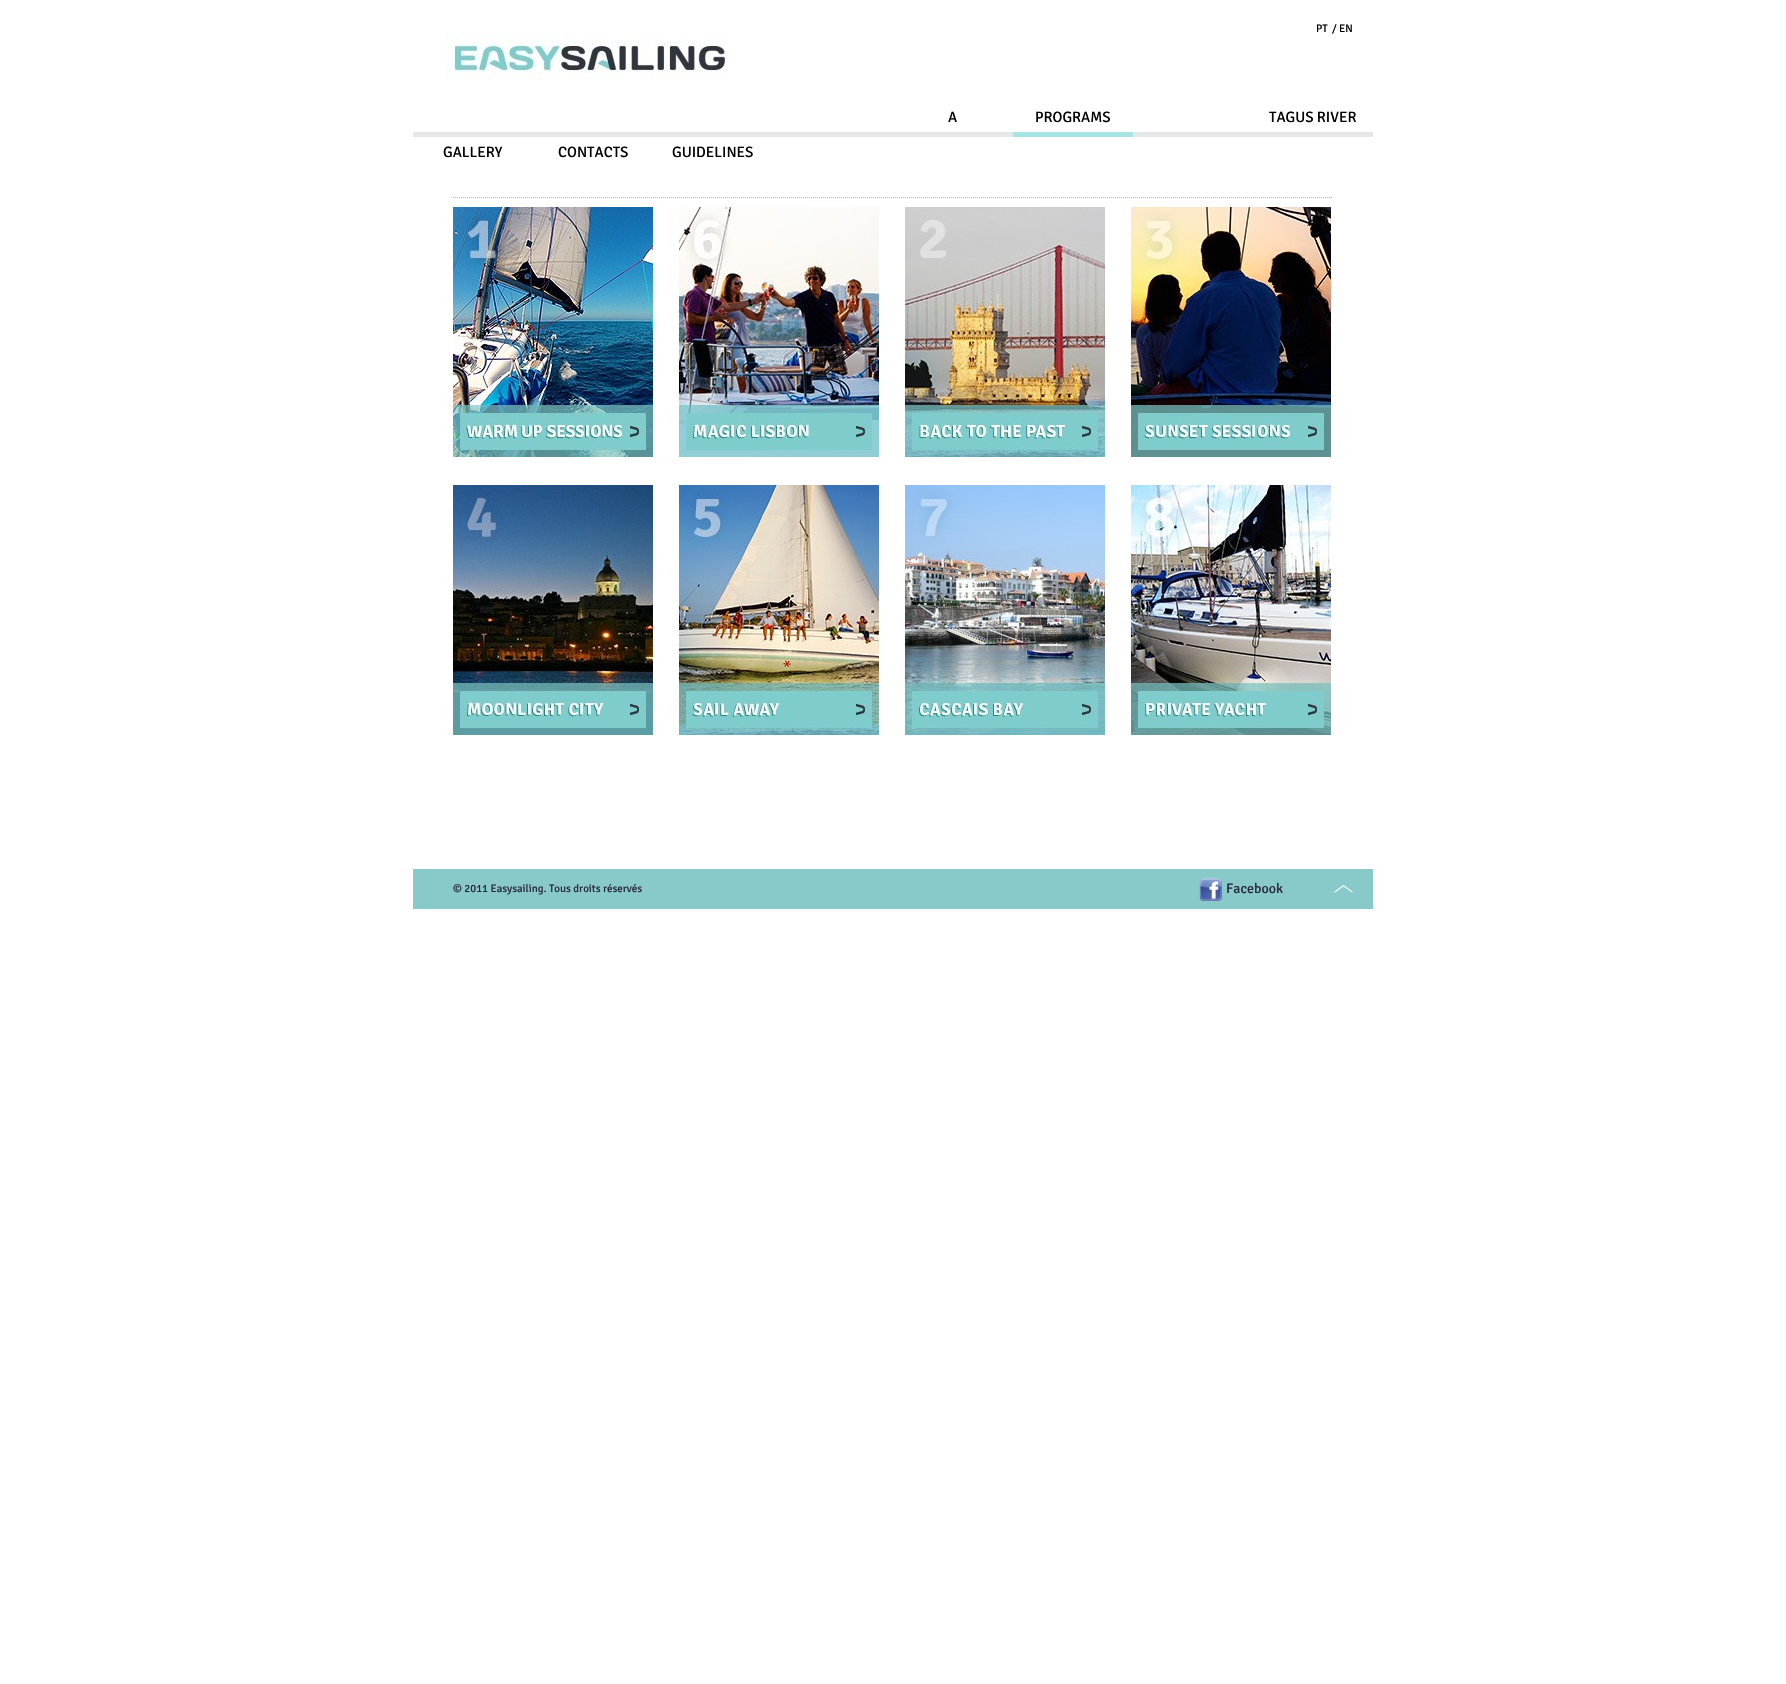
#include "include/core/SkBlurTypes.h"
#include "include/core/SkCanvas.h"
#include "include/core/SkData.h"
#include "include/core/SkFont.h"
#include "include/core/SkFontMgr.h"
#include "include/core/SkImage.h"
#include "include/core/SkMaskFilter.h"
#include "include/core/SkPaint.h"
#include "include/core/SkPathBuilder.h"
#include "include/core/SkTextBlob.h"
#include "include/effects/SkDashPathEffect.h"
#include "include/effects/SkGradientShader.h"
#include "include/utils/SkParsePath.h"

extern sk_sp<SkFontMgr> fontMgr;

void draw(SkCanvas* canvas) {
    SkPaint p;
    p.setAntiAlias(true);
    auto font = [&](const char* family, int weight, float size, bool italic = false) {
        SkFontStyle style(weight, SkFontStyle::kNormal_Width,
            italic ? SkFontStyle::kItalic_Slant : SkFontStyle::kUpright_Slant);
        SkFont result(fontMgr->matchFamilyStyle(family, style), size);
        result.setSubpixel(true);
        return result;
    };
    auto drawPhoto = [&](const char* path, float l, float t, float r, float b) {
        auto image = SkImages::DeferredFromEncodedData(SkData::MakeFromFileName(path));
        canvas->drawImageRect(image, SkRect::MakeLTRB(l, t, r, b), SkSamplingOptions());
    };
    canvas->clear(0xFFFFFFFF);
    auto font1 = font("Signika", 300, 11);
    p.setColor(0xFF000000);
    canvas->drawString("PT", 1316, 32, font1, p);
    canvas->drawString("/ EN", 1332, 32, font1, p);
    drawPhoto("media/1.png", 445, 32, 732, 80);
    p.setColor(0xFFE6E7E8);
    canvas->drawRect(SkRect::MakeLTRB(413, 132, 1373, 137), p);
    auto font2 = font("Signika", 300, 15);
    p.setColor(0xFF000000);
    canvas->drawString("A", 948, 122, font2, p);
    p.setColor(0xFFA7E5E5);
    canvas->drawRect(SkRect::MakeLTRB(1013, 132, 1133, 137), p);
    p.setColor(0xFF000000);
    {
        const struct { const char* s; float x, y; } items[] = {
            {"PROGRAMS", 1035, 122},
            {"TAGUS RIVER", 1269, 122},
            {"GALLERY", 443, 157},
            {"CONTACTS", 558, 157},
            {"GUIDELINES", 672, 157},
        };
        for (auto [s, x, y] : items) {
            canvas->drawString(s, x, y, font2, p);
        }
    }
    p.setStyle(SkPaint::kStroke_Style);
    p.setStrokeWidth(1);
    p.setColor(0xFF88C9C9);
    p.setPathEffect(SkDashPathEffect::Make({{1, 1}}, 0));
    canvas->drawPath(SkPathBuilder().moveTo(453, 197.5f).lineTo(1333, 197.5f).detach(), p);
    p.setPathEffect(nullptr);
    drawPhoto("media/2.png", 453, 207, 653, 457);
    drawPhoto("media/3.png", 679, 207, 879, 457);
    drawPhoto("media/4.png", 905, 207, 1105, 457);
    drawPhoto("media/5.png", 1131, 207, 1331, 457);
    drawPhoto("media/6.png", 453, 485, 653, 735);
    drawPhoto("media/7.png", 679, 485, 879, 735);
    drawPhoto("media/8.png", 905, 485, 1105, 735);
    drawPhoto("media/9.png", 1131, 485, 1331, 735);
    p.setStyle(SkPaint::kFill_Style);
    canvas->drawRect(SkRect::MakeLTRB(413, 869, 1373, 909), p);
    p.setColor(0xFF28283F);
    canvas->drawString("© 2011 Easysailing. Tous droits réservés", 453, 892, font1, p);
    drawPhoto("media/10.png", 1199, 878, 1222, 901);
    auto font3 = font("Signika", 300, 14);
    canvas->drawString("Facebook", 1226, 893, font3, p);
    drawPhoto("media/11.png", 1333, 885, 1353, 893);
}
